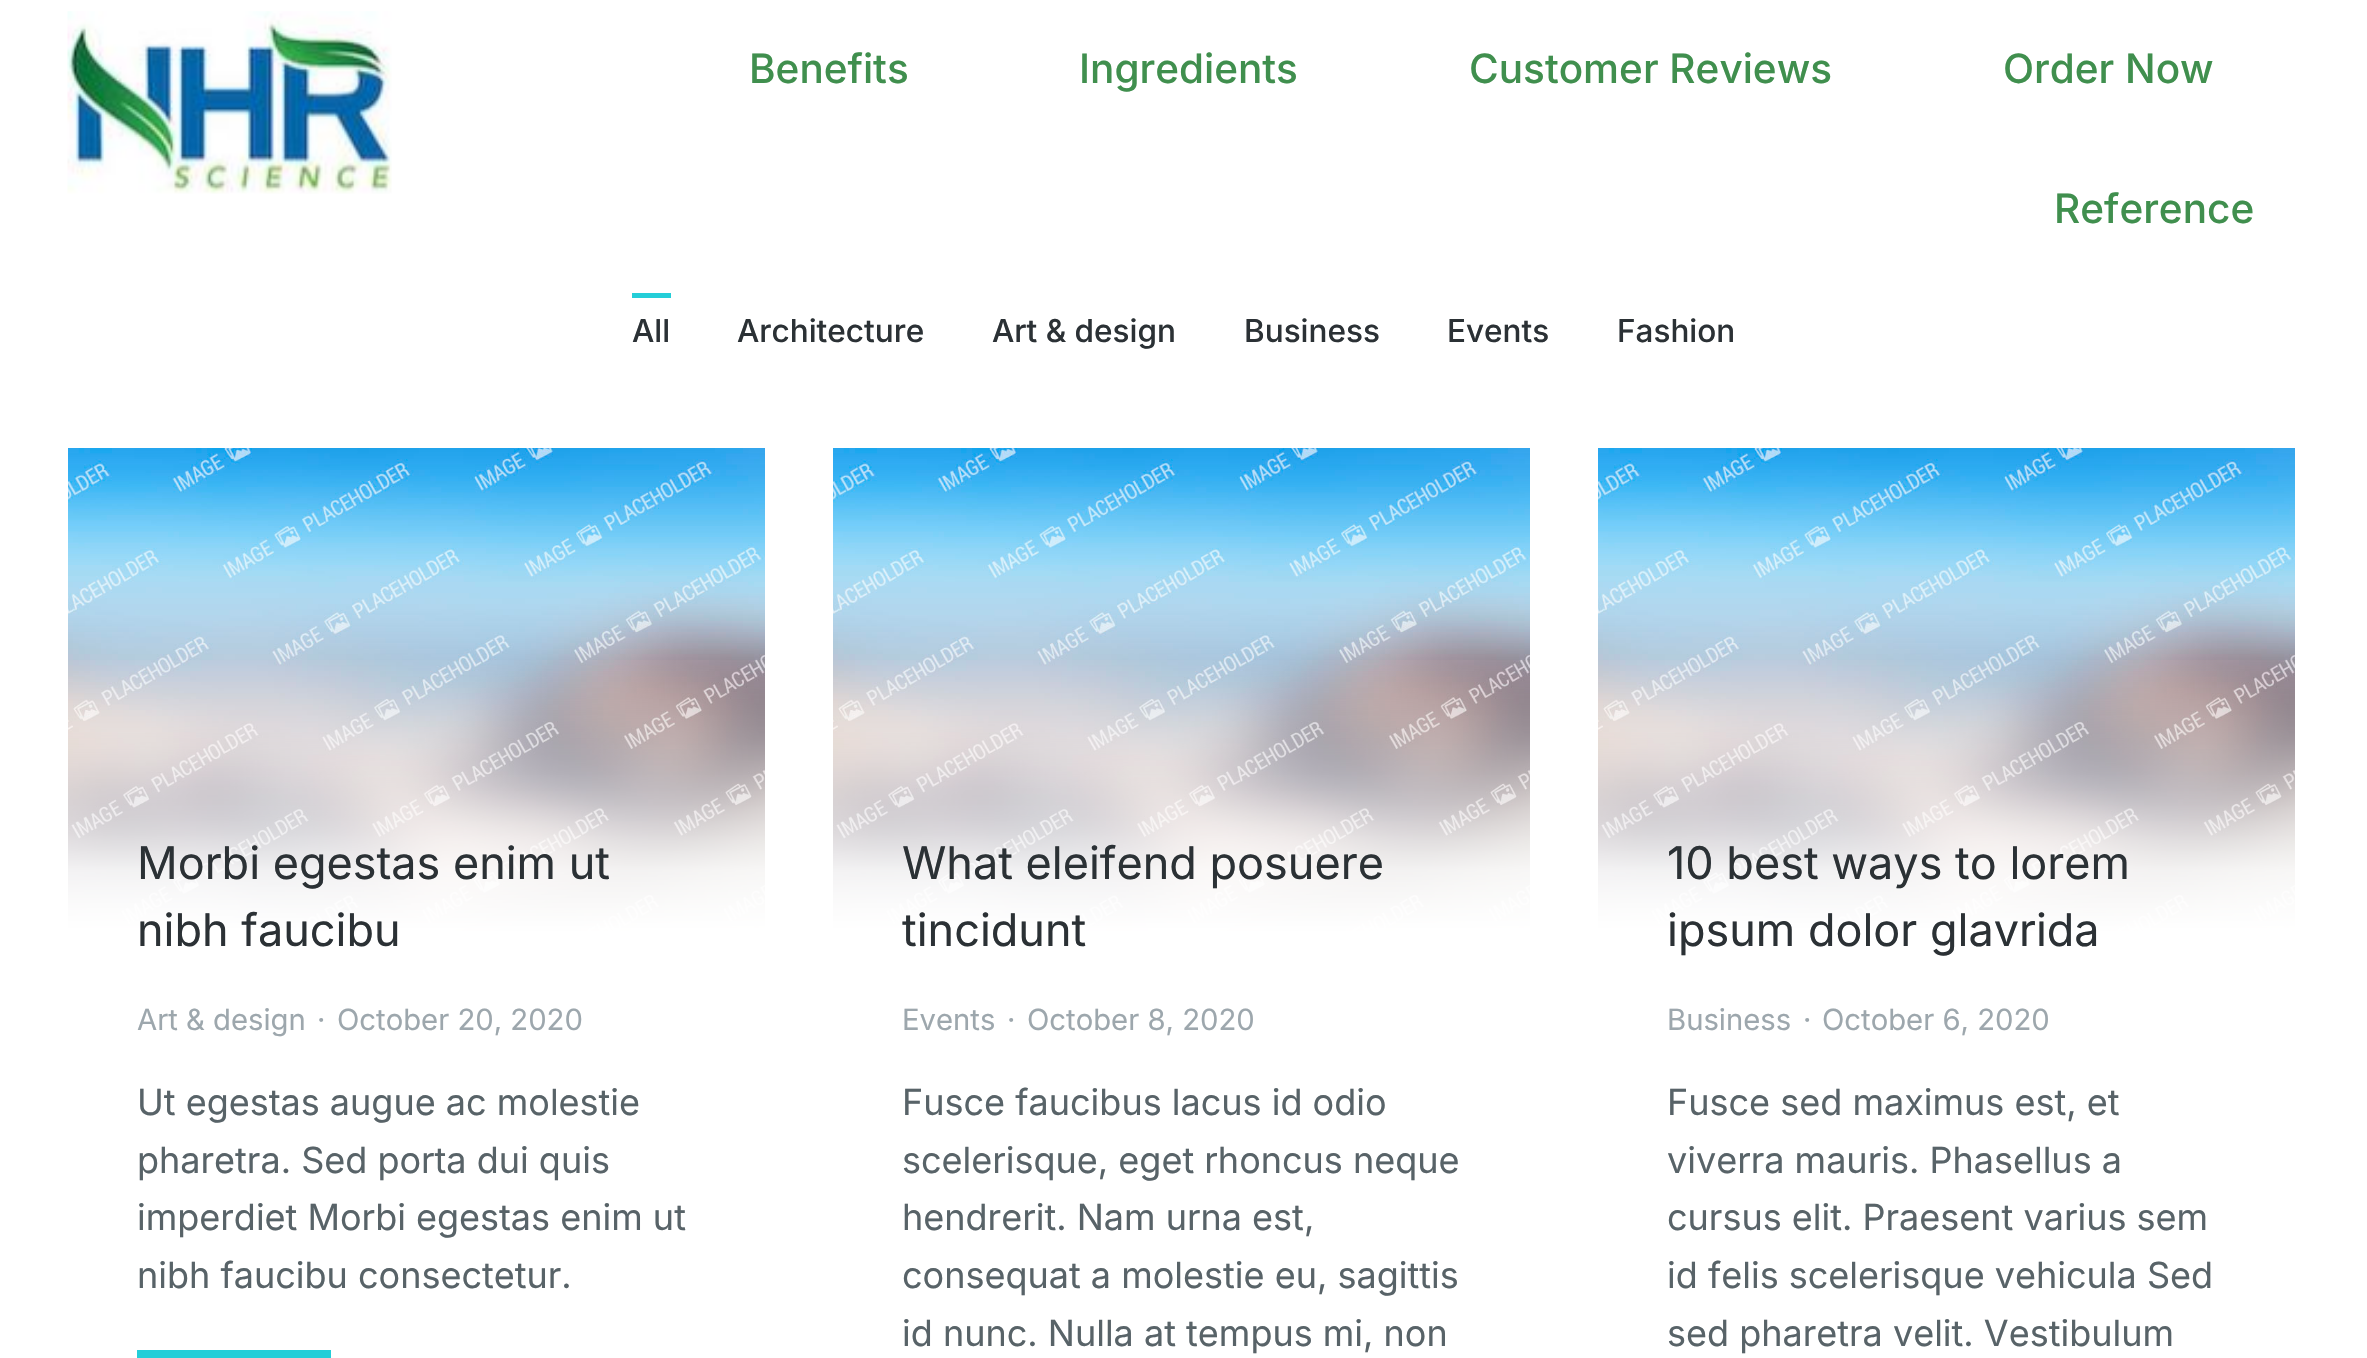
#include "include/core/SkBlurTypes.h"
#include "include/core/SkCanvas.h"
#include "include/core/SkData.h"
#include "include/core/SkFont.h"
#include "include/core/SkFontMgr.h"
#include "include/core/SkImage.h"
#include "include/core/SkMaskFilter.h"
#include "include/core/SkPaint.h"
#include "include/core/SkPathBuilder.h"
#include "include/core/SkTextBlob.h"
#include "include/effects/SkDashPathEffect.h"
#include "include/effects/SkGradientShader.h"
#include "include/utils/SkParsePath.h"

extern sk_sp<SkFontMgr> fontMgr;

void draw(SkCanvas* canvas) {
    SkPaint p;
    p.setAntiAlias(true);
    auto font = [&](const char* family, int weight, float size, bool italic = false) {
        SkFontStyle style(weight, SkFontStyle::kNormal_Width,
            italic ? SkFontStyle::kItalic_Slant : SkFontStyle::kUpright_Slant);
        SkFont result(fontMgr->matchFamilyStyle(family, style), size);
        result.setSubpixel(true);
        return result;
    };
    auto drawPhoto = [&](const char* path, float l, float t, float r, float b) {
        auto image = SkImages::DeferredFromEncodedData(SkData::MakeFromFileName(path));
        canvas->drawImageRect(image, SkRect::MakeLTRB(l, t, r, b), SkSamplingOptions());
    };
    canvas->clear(0xFFFFFFFF);
    drawPhoto("media/1.png", 67, 11, 392, 194);
    auto font1 = font("Inter", 500, 40.5f);
    p.setColor(0xFF408F4E);
    {
        const struct { const char* s; float x, y; } items[] = {
            {"Benefits", 749, 83},
            {"Ingredients", 1079, 83},
            {"Customer Reviews", 1469, 83},
            {"Order Now", 2003, 83},
            {"Reference", 2054, 223},
        };
        for (auto [s, x, y] : items) {
            canvas->drawString(s, x, y, font1, p);
        }
    }
    p.setColor(0xFF24CED8);
    canvas->drawRect(SkRect::MakeLTRB(632, 293, 671, 298), p);
    auto font2 = font("Inter", 500, 31.5f);
    p.setColor(0xFF2B3135);
    {
        const struct { const char* s; float x, y; } items[] = {
            {"All", 632, 342},
            {"Architecture", 737, 342},
            {"Art & design", 992, 342},
            {"Business", 1244, 342},
            {"Events", 1447, 342},
            {"Fashion", 1617, 342},
        };
        for (auto [s, x, y] : items) {
            canvas->drawString(s, x, y, font2, p);
        }
    }
    drawPhoto("media/2.png", 68, 448, 765, 931);
    {
        const SkColor colors[] = {0x00FFFFFF, 0xE6FFFFFF, 0xFFFFFFFF, 0xFFFFFFFF};
        const float stops[] = {0, 0.64f, 0.83f, 1};
        const SkPoint ends[] = {{416, 655}, {416, 992}};
        p.setShader(SkGradientShader::MakeLinear(ends, colors, stops, 4, SkTileMode::kClamp));
        p.setAlpha(255);
    }
    canvas->drawRect(SkRect::MakeLTRB(68, 660, 765, 931), p);
    auto font3 = font("Inter", 400, 45);
    p.setShader(nullptr);
    p.setColor(0xFF2B3135);
    canvas->drawString("Morbi egestas enim ut", 137, 879, font3, p);
    canvas->drawString("nibh faucibu", 137, 946, font3, p);
    auto font4 = font("Inter", 400, 29.25f);
    p.setColor(0xFF9DA7AD);
    {
        const struct { const char* s; float x, y; } items[] = {
            {"Art & design", 137, 1030},
            {"·", 317, 1030},
            {"October 20, 2020", 337, 1030},
        };
        for (auto [s, x, y] : items) {
            canvas->drawString(s, x, y, font4, p);
        }
    }
    auto font5 = font("Inter", 400, 36);
    p.setColor(0xFF586368);
    {
        const struct { const char* s; float x, y; } items[] = {
            {"Ut egestas augue ac molestie", 137, 1115},
            {"pharetra. Sed porta dui quis", 137, 1173},
            {"imperdiet Morbi egestas enim ut", 137, 1230},
            {"nibh faucibu consectetur.", 137, 1288},
        };
        for (auto [s, x, y] : items) {
            canvas->drawString(s, x, y, font5, p);
        }
    }
    p.setColor(0xFF24CED8);
    canvas->drawRect(SkRect::MakeLTRB(137, 1350, 331, 1358), p);
    drawPhoto("media/3.png", 833, 448, 1530, 931);
    {
        const SkColor colors[] = {0x00FFFFFF, 0xE6FFFFFF, 0xFFFFFFFF, 0xFFFFFFFF};
        const float stops[] = {0, 0.64f, 0.83f, 1};
        const SkPoint ends[] = {{1181, 655}, {1181, 992}};
        p.setShader(SkGradientShader::MakeLinear(ends, colors, stops, 4, SkTileMode::kClamp));
        p.setAlpha(255);
    }
    canvas->drawRect(SkRect::MakeLTRB(833, 660, 1530, 931), p);
    p.setShader(nullptr);
    p.setColor(0xFF2B3135);
    canvas->drawString("What eleifend posuere", 902, 879, font3, p);
    canvas->drawString("tincidunt", 902, 946, font3, p);
    p.setColor(0xFF9DA7AD);
    {
        const struct { const char* s; float x, y; } items[] = {
            {"Events", 902, 1030},
            {"·", 1007, 1030},
            {"October 8, 2020", 1027, 1030},
        };
        for (auto [s, x, y] : items) {
            canvas->drawString(s, x, y, font4, p);
        }
    }
    p.setColor(0xFF586368);
    {
        const struct { const char* s; float x, y; } items[] = {
            {"Fusce faucibus lacus id odio", 902, 1115},
            {"scelerisque, eget rhoncus neque", 902, 1173},
            {"hendrerit. Nam urna est,", 902, 1230},
            {"consequat a molestie eu, sagittis", 902, 1288},
            {"id nunc. Nulla at tempus mi, non", 902, 1346},
        };
        for (auto [s, x, y] : items) {
            canvas->drawString(s, x, y, font5, p);
        }
    }
    drawPhoto("media/3.png", 1598, 448, 2295, 931);
    {
        const SkColor colors[] = {0x00FFFFFF, 0xE6FFFFFF, 0xFFFFFFFF, 0xFFFFFFFF};
        const float stops[] = {0, 0.64f, 0.83f, 1};
        const SkPoint ends[] = {{1946, 655}, {1946, 992}};
        p.setShader(SkGradientShader::MakeLinear(ends, colors, stops, 4, SkTileMode::kClamp));
        p.setAlpha(255);
    }
    canvas->drawRect(SkRect::MakeLTRB(1598, 660, 2295, 931), p);
    p.setShader(nullptr);
    p.setColor(0xFF2B3135);
    canvas->drawString("10 best ways to lorem", 1667, 879, font3, p);
    canvas->drawString("ipsum dolor glavrida", 1667, 946, font3, p);
    p.setColor(0xFF9DA7AD);
    {
        const struct { const char* s; float x, y; } items[] = {
            {"Business", 1667, 1030},
            {"·", 1803, 1030},
            {"October 6, 2020", 1822, 1030},
        };
        for (auto [s, x, y] : items) {
            canvas->drawString(s, x, y, font4, p);
        }
    }
    p.setColor(0xFF586368);
    {
        const struct { const char* s; float x, y; } items[] = {
            {"Fusce sed maximus est, et", 1667, 1115},
            {"viverra mauris. Phasellus a", 1667, 1173},
            {"cursus elit. Praesent varius sem", 1667, 1230},
            {"id felis scelerisque vehicula Sed", 1667, 1288},
            {"sed pharetra velit. Vestibulum", 1667, 1346},
        };
        for (auto [s, x, y] : items) {
            canvas->drawString(s, x, y, font5, p);
        }
    }
}
